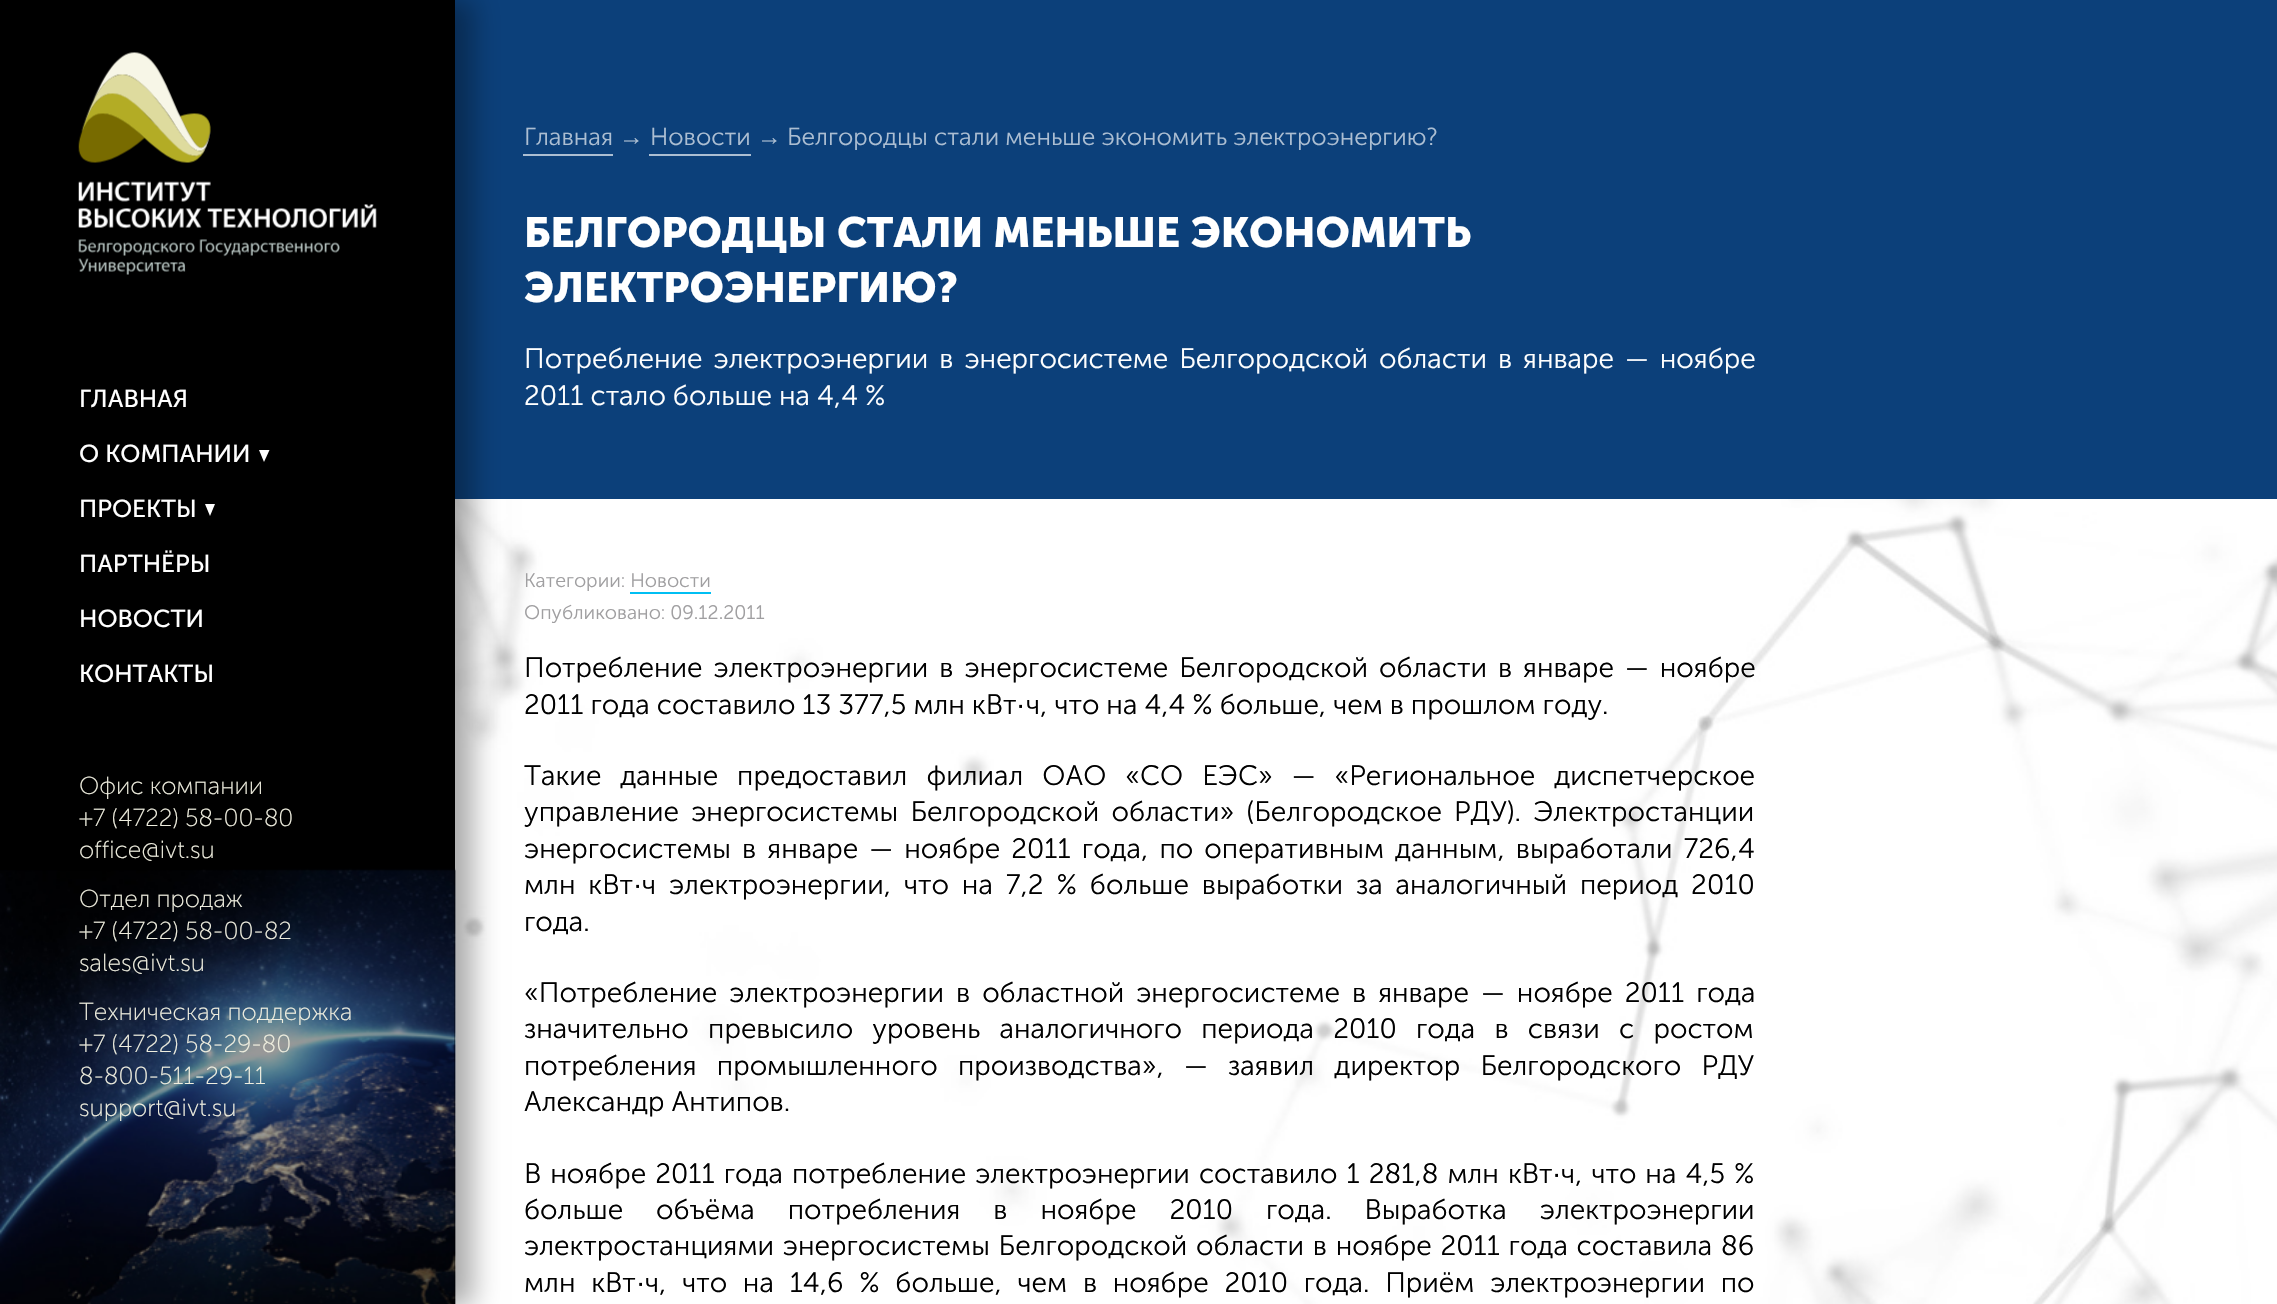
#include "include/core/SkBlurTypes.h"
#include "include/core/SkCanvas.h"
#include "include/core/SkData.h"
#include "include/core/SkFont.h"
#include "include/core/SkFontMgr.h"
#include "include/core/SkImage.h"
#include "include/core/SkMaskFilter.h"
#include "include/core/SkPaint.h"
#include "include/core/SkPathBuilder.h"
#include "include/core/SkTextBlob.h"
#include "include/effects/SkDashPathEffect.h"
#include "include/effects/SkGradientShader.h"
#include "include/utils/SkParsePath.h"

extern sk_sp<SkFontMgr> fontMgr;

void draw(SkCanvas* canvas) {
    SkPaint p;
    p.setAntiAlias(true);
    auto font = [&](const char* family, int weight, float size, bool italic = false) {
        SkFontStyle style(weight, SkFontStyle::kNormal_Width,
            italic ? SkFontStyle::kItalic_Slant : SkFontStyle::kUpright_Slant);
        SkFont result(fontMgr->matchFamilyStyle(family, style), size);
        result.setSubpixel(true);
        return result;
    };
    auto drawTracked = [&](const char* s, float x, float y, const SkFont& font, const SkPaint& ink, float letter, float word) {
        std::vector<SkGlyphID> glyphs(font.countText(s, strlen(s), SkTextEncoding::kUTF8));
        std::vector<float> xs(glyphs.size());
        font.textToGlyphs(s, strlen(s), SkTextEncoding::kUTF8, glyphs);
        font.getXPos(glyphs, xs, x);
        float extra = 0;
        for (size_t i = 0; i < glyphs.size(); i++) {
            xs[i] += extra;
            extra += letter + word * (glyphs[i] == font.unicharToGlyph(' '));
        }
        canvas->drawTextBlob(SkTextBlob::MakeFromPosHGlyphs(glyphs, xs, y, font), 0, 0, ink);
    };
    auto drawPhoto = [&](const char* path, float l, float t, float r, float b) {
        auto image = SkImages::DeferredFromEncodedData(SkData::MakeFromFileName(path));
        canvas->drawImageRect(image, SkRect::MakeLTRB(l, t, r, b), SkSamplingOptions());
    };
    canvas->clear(0xFFFFFFFF);
    p.setColor(0xFF0C407A);
    canvas->drawRect(SkRect::MakeLTRB(455, 0, 2277, 499), p);
    drawPhoto("media/3.png", 455, 499, 2277, 1304);
    p.setColor(0x54000000);
    p.setMaskFilter(SkMaskFilter::MakeBlur(kNormal_SkBlurStyle, 13));
    canvas->drawRect(SkRect::MakeLTRB(18, 0, 473, 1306), p);
    p.setMaskFilter(nullptr);
    p.setColor(0xFF000000);
    canvas->drawRect(SkRect::MakeLTRB(0, 0, 455, 1304), p);
    drawPhoto("media/1.png", 0, 868, 456, 1304);
    drawPhoto("media/2.png", 78, 52, 377, 275);
    auto font1 = font("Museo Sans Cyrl", 400, 24.5f);
    p.setColor(0xFFFFFFFF);
    canvas->drawString("ГЛАВНАЯ", 79, 407, font1, p);
    canvas->drawString("О КОМПАНИИ", 79, 462, font1, p);
    canvas->drawPath(SkPathBuilder().moveTo(259, 450).lineTo(269.5f, 450).lineTo(264, 462).close().detach(), p);
    canvas->drawString("ПРОЕКТЫ", 79, 517, font1, p);
    canvas->drawPath(SkPathBuilder().moveTo(205, 504).lineTo(215, 504).lineTo(210, 516).close().detach(), p);
    {
        const struct { const char* s; float x, y; } items[] = {
            {"ПАРТНЁРЫ", 79, 572},
            {"НОВОСТИ", 79, 627},
            {"КОНТАКТЫ", 79, 682},
        };
        for (auto [s, x, y] : items) {
            canvas->drawString(s, x, y, font1, p);
        }
    }
    auto font2 = font("Museo Sans Cyrl", 200, 24.5f);
    p.setColor(0xFFEFEEDF);
    {
        const struct { const char* s; float x, y; } items[] = {
            {"Офис компании", 79, 794},
            {"+7 (4722) 58-00-80", 79, 826},
            {"office@ivt.su", 79, 858},
            {"Отдел продаж", 79, 907},
            {"+7 (4722) 58-00-82", 79, 939},
            {"sales@ivt.su", 79, 971},
            {"Техническая поддержка", 79, 1020},
            {"+7 (4722) 58-29-80", 79, 1052},
            {"8-800-511-29-11", 79, 1084},
            {"support@ivt.su", 79, 1116},
        };
        for (auto [s, x, y] : items) {
            canvas->drawString(s, x, y, font2, p);
        }
    }
    auto font3 = font("Museo Sans Cyrl", 300, 24.5f);
    p.setColor(0xFFACBED2);
    canvas->drawString("Главная", 524, 145, font3, p);
    canvas->drawRect(SkRect::MakeLTRB(523, 154, 613, 156), p);
    auto font4 = font("Liberation Sans", 400, 24.5f);
    canvas->drawString("→", 619, 145, font4, p);
    canvas->drawString("Новости", 650, 145, font3, p);
    canvas->drawRect(SkRect::MakeLTRB(649, 154, 751, 156), p);
    canvas->drawString("→", 757, 145, font4, p);
    canvas->drawString("Белгородцы стали меньше экономить электроэнергию?", 787, 145, font3, p);
    auto font5 = font("Museo Sans Cyrl", 700, 42);
    p.setColor(0xFFFFFFFF);
    canvas->drawString("БЕЛГОРОДЦЫ СТАЛИ МЕНЬШЕ ЭКОНОМИТЬ", 524, 247, font5, p);
    canvas->drawString("ЭЛЕКТРОЭНЕРГИЮ?", 524, 302, font5, p);
    auto font6 = font("Museo Sans Cyrl", 300, 28);
    drawTracked("Потребление электроэнергии в энергосистеме Белгородской области в январе — ноябре", 524, 368, font6, p, 0, 4);
    canvas->drawString("2011 стало больше на 4,4 %", 524, 405, font6, p);
    auto font7 = font("Museo Sans Cyrl", 300, 19.6f);
    p.setColor(0xFFA09FA1);
    canvas->drawString("Категории: Новости", 524, 587, font7, p);
    p.setColor(0xFF00BFF3);
    canvas->drawRect(SkRect::MakeLTRB(630, 592, 711, 594), p);
    p.setColor(0xFFA09FA1);
    canvas->drawString("Опубликовано: 09.12.2011", 524, 619, font7, p);
    p.setColor(0xFF000000);
    drawTracked("Потребление электроэнергии в энергосистеме Белгородской области в январе — ноябре", 524, 677, font6, p, 0, 4);
    canvas->drawString("2011 года составило 13 377,5 млн кВт", 524, 714, font6, p);
    auto font8 = font("Liberation Sans", 400, 28);
    canvas->drawString("·", 1016, 714, font8, p);
    canvas->drawString("ч, что на 4,4 % больше, чем в прошлом году.", 1026, 714, font6, p);
    drawTracked("Такие данные предоставил филиал ОАО «СО ЕЭС» — «Региональное диспетчерское", 524, 785, font6, p, 0, 12);
    drawTracked("управление энергосистемы Белгородской области» (Белгородское РДУ). Электростанции", 524, 821, font6, p, 0, 5.25f);
    drawTracked("энергосистемы в январе — ноябре 2011 года, по оперативным данным, выработали 726,4", 524, 858, font6, p, 0, 4.1f);
    drawTracked("млн кВт", 524, 894, font6, p, 0, 5.9f);
    canvas->drawString("·", 633, 894, font8, p);
    drawTracked("ч электроэнергии, что на 7,2 % больше выработки за аналогичный период 2010", 642, 894, font6, p, 0, 5.9f);
    canvas->drawString("года.", 524, 931, font6, p);
    drawTracked("«Потребление электроэнергии в областной энергосистеме в январе — ноябре 2011 года", 524, 1002, font6, p, 0, 5);
    drawTracked("значительно превысило уровень аналогичного периода 2010 года в связи с ростом", 524, 1038, font6, p, 0, 12.25f);
    drawTracked("потребления промышленного производства», — заявил директор Белгородского РДУ", 524, 1075, font6, p, 0, 13.25f);
    canvas->drawString("Александр Антипов.", 524, 1111, font6, p);
    drawTracked("В ноябре 2011 года потребление электроэнергии составило 1 281,8 млн кВт", 524, 1183, font6, p, 0, 2);
    canvas->drawString("·", 1552, 1183, font8, p);
    drawTracked("ч, что на 4,5 %", 1561, 1183, font6, p, 0, 2);
    drawTracked("больше объёма потребления в ноябре 2010 года. Выработка электроэнергии", 524, 1219, font6, p, 0, 26);
    drawTracked("электростанциями энергосистемы Белгородской области в ноябре 2011 года составила 86", 524, 1255, font6, p, 0, 1.75f);
    drawTracked("млн кВт", 524, 1292, font6, p, 0, 8.75f);
    canvas->drawString("·", 636, 1292, font8, p);
    drawTracked("ч, что на 14,6 % больше, чем в ноябре 2010 года. Приём электроэнергии по", 645, 1292, font6, p, 0, 8.75f);
}
